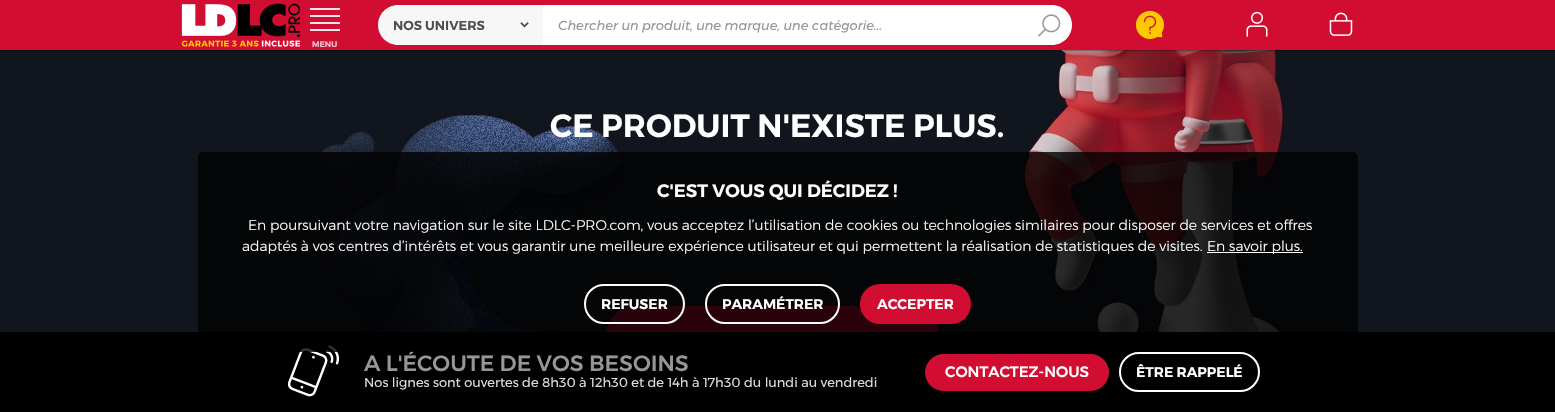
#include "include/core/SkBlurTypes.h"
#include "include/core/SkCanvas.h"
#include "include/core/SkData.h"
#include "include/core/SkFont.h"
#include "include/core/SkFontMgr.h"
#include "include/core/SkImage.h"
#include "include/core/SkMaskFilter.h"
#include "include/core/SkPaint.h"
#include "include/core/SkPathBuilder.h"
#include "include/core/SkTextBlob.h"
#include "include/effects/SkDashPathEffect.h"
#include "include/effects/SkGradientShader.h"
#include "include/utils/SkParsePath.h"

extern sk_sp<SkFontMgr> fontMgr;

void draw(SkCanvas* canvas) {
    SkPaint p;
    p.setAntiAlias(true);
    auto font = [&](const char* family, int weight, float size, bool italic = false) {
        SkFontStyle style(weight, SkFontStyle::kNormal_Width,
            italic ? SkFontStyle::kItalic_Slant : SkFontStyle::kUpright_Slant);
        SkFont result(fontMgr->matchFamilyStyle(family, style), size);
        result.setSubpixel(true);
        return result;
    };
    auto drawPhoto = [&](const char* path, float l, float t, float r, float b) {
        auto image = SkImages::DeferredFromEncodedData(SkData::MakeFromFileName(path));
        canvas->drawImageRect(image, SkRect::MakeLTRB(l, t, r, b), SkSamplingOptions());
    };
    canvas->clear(0xFF11151E);
    drawPhoto("media/7.png", 290, 50, 1349, 332);
    p.setColor(0x40000000);
    p.setMaskFilter(SkMaskFilter::MakeBlur(kNormal_SkBlurStyle, 0.5f));
    canvas->drawRect(SkRect::MakeLTRB(0, 1, 1555, 51), p);
    p.setMaskFilter(nullptr);
    p.setColor(0xFFD10D32);
    canvas->drawRect(SkRect::MakeLTRB(0, 0, 1555, 50), p);
    drawPhoto("media/1.png", 181, 3, 301, 47);
    p.setColor(0xFFF7F7F7);
    canvas->drawPath(SkPathBuilder().moveTo(398, 5).lineTo(543, 5).lineTo(543, 45).lineTo(398, 45).cubicTo(387, 45, 378, 36, 378, 25).cubicTo(378, 14, 387, 5, 398, 5).close().detach(), p);
    auto font1 = font("Montserrat", 600, 13);
    p.setColor(0xFF505050);
    canvas->drawString("NOS UNIVERS", 393, 30, font1, p);
    drawPhoto("media/2.png", 520, 22, 529, 28);
    p.setColor(0xFFFFFFFF);
    canvas->drawPath(SkPathBuilder().moveTo(543, 5).lineTo(1052, 5).cubicTo(1063, 5, 1072, 14, 1072, 25).cubicTo(1072, 36, 1063, 45, 1052, 45).lineTo(543, 45).close().detach(), p);
    auto font2 = font("Montserrat", 400, 13, true);
    p.setColor(0xFF969696);
    canvas->drawString("Chercher un produit, une marque, une catégorie...", 558, 30, font2, p);
    drawPhoto("media/3.png", 1038, 14, 1061, 37);
    drawPhoto("media/4.png", 1135, 10, 1164, 39);
    drawPhoto("media/5.png", 1246, 11, 1268, 37);
    drawPhoto("media/6.png", 1329, 12, 1353, 36);
    {
        const struct { float l, t, r, b; SkColor color; } items[] = {
            {310, 8, 340, 10, 0xFFFAE7EB},
            {310, 29, 340, 31, 0xFFFAE7EB},
            {310, 15, 340, 17, 0xFFFAE7EB},
            {310, 22, 340, 24, 0xFFFAE7EB},
        };
        for (auto [l, t, r, b, color] : items) {
            p.setColor(color);
            canvas->drawRect(SkRect::MakeLTRB(l, t, r, b), p);
        }
    }
    auto font3 = font("Montserrat", 600, 8);
    p.setColor(0xFFF4C3CC);
    canvas->drawString("MENU", 312, 47, font3, p);
    auto font4 = font("Montserrat", 600, 32);
    p.setColor(0xFFFFFFFF);
    canvas->drawString("CE PRODUIT N'EXISTE PLUS.", 550, 137, font4, p);
    p.setColor(0xFFD10D32);
    canvas->drawRoundRect(SkRect::MakeLTRB(606, 306, 939, 365), 29.5f, 29.5f, p);
    p.setColor(0xFF000000);
    canvas->drawRect(SkRect::MakeLTRB(0, 332, 1555, 412), p);
    drawPhoto("media/8.png", 288, 345, 340, 397);
    auto font5 = font("Montserrat", 500, 22);
    p.setColor(0xFF969696);
    canvas->drawString("A L'ÉCOUTE DE VOS BESOINS", 364, 371, font5, p);
    p.setColor(0xCC000000);
    canvas->drawRoundRect(SkRect::MakeLTRB(198, 152, 1358, 352), 5, 5, p);
    auto font6 = font("Montserrat", 600, 18);
    p.setColor(0xFFFFFFFF);
    canvas->drawString("C'EST VOUS QUI DÉCIDEZ !", 657, 197, font6, p);
    auto font7 = font("Montserrat", 300, 14);
    canvas->drawString("En poursuivant votre navigation sur le site LDLC-PRO.com, vous acceptez l’utilisation de cookies ou technologies similaires pour disposer de services et offres", 248, 230, font7, p);
    canvas->drawString("adaptés à vos centres d’intérêts et vous garantir une meilleure expérience utilisateur et qui permettent la réalisation de statistiques de visites.", 242, 251, font7, p);
    canvas->drawRect(SkRect::MakeLTRB(1207, 252, 1303, 253), p);
    canvas->drawString("En savoir plus.", 1207, 251, font7, p);
    p.setStyle(SkPaint::kStroke_Style);
    p.setStrokeWidth(2);
    canvas->drawRoundRect(SkRect::MakeLTRB(585, 285, 684, 323), 19, 19, p);
    auto font8 = font("Montserrat", 600, 14);
    p.setStyle(SkPaint::kFill_Style);
    canvas->drawString("REFUSER", 601, 309, font8, p);
    p.setStyle(SkPaint::kStroke_Style);
    canvas->drawRoundRect(SkRect::MakeLTRB(706, 285, 839, 323), 19, 19, p);
    p.setStyle(SkPaint::kFill_Style);
    canvas->drawString("PARAMÉTRER", 722, 309, font8, p);
    p.setColor(0xFFD10D32);
    canvas->drawRoundRect(SkRect::MakeLTRB(860, 284, 971, 324), 20, 20, p);
    p.setColor(0xFFFFFFFF);
    canvas->drawString("ACCEPTER", 877, 309, font8, p);
    auto font9 = font("Montserrat", 400, 13);
    p.setColor(0xFFDBDBDB);
    canvas->drawString("Nos lignes sont ouvertes de 8h30 à 12h30 et de 14h à 17h30 du lundi au vendredi", 364, 387, font9, p);
    p.setColor(0xFFD10D32);
    canvas->drawRoundRect(SkRect::MakeLTRB(925, 354, 1109, 391), 18.5f, 18.5f, p);
    auto font10 = font("Montserrat", 500, 15);
    p.setColor(0xFFFFFFFF);
    canvas->drawString("CONTACTEZ-NOUS", 945, 377, font10, p);
    p.setStyle(SkPaint::kStroke_Style);
    canvas->drawRoundRect(SkRect::MakeLTRB(1120, 353, 1259, 391), 19, 19, p);
    p.setStyle(SkPaint::kFill_Style);
    canvas->drawString("ÊTRE RAPPELÉ", 1136, 377, font8, p);
}
